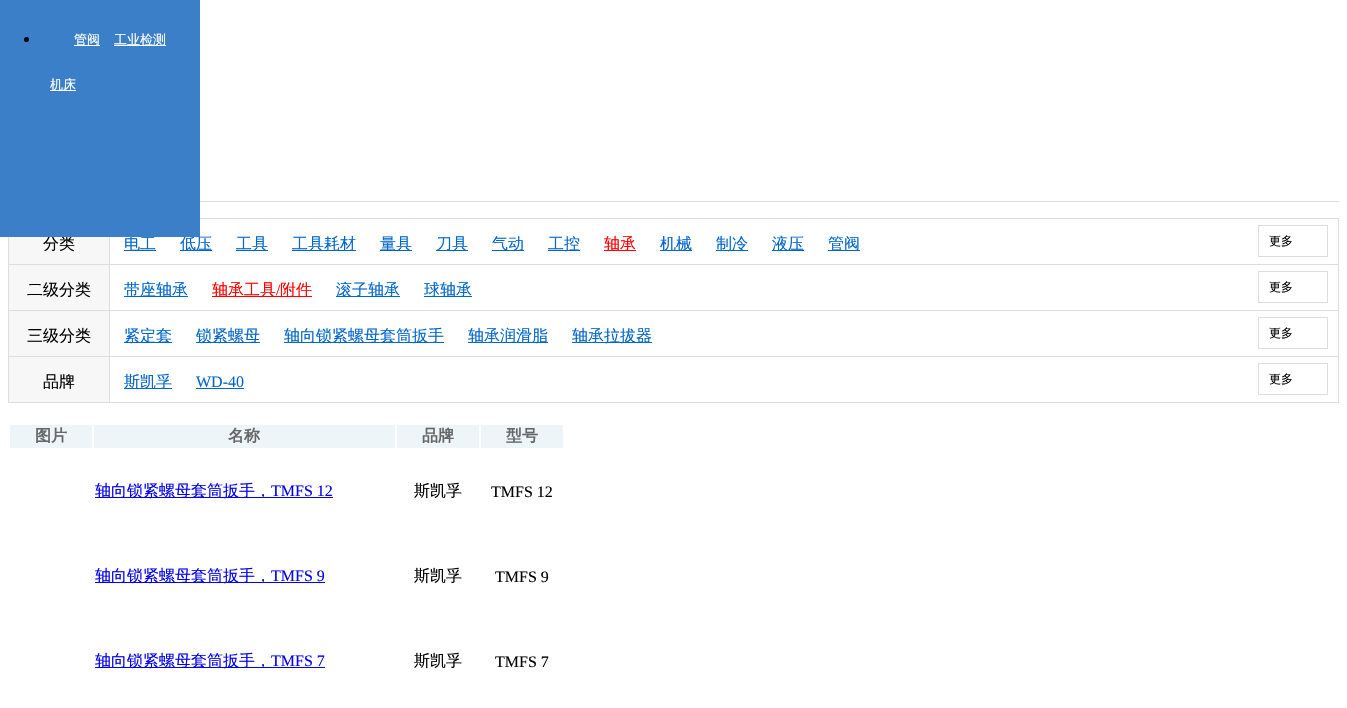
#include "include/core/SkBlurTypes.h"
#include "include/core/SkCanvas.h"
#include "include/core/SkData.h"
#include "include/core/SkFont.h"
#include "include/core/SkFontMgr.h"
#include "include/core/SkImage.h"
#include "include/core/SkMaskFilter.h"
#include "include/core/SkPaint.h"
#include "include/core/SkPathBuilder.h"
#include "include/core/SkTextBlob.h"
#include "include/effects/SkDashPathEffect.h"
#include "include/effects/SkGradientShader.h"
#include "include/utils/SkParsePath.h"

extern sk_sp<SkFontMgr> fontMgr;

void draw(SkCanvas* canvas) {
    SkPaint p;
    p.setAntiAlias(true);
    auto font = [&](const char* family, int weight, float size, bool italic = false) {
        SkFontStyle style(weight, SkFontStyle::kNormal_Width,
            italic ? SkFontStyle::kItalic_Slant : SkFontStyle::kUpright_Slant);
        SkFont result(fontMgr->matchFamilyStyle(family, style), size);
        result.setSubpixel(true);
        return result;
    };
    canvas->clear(0xFFFFFFFF);
    p.setColor(0xFFF7F7F7);
    canvas->drawRect(SkRect::MakeLTRB(9, 237, 109, 264), p);
    auto font1 = font("WenQuanYi Zen Hei", 500, 16);
    p.setColor(0xFF000000);
    canvas->drawString("分类", 43, 249, font1, p);
    p.setColor(0xFF0066CC);
    canvas->drawRect(SkRect::MakeLTRB(124, 250, 156, 251), p);
    canvas->drawString("电工", 124, 249, font1, p);
    canvas->drawRect(SkRect::MakeLTRB(180, 250, 212, 251), p);
    canvas->drawString("低压", 180, 249, font1, p);
    p.setColor(0xFF3A7FC7);
    canvas->drawRect(SkRect::MakeLTRB(0, 0, 200, 237), p);
    p.setColor(0xFF000000);
    canvas->drawCircle(26.5f, 39.5f, 2.5f, p);
    p.setColor(0xFFFFFFFF);
    canvas->drawRect(SkRect::MakeLTRB(74, 45, 100, 46), p);
    auto font2 = font("WenQuanYi Zen Hei", 500, 13);
    canvas->drawString("管阀", 74, 44, font2, p);
    canvas->drawRect(SkRect::MakeLTRB(114, 45, 166, 46), p);
    canvas->drawString("工业检测", 114, 44, font2, p);
    canvas->drawRect(SkRect::MakeLTRB(50, 90, 76, 91), p);
    canvas->drawString("机床", 50, 89, font2, p);
    {
        const struct { float l, t, r, b; SkColor color; } items[] = {
            {200, 201, 1339, 202, 0xFFDDDDDD},
            {200, 218, 1339, 219, 0xFFDDDDDD},
            {1338, 218, 1339, 403, 0xFFDDDDDD},
            {8, 237, 9, 403, 0xFFDDDDDD},
            {9, 264, 1338, 265, 0xFFDDDDDD},
            {109, 237, 110, 264, 0xFFDDDDDD},
            {236, 250, 268, 251, 0xFF0066CC},
        };
        for (auto [l, t, r, b, color] : items) {
            p.setColor(color);
            canvas->drawRect(SkRect::MakeLTRB(l, t, r, b), p);
        }
    }
    canvas->drawString("工具", 236, 249, font1, p);
    canvas->drawRect(SkRect::MakeLTRB(292, 250, 356, 251), p);
    canvas->drawString("工具耗材", 292, 249, font1, p);
    canvas->drawRect(SkRect::MakeLTRB(380, 250, 412, 251), p);
    canvas->drawString("量具", 380, 249, font1, p);
    canvas->drawRect(SkRect::MakeLTRB(436, 250, 468, 251), p);
    canvas->drawString("刀具", 436, 249, font1, p);
    canvas->drawRect(SkRect::MakeLTRB(492, 250, 524, 251), p);
    canvas->drawString("气动", 492, 249, font1, p);
    canvas->drawRect(SkRect::MakeLTRB(548, 250, 580, 251), p);
    canvas->drawString("工控", 548, 249, font1, p);
    p.setColor(0xFFFF0000);
    canvas->drawRect(SkRect::MakeLTRB(604, 250, 636, 251), p);
    canvas->drawString("轴承", 604, 249, font1, p);
    p.setColor(0xFF0066CC);
    canvas->drawRect(SkRect::MakeLTRB(660, 250, 692, 251), p);
    canvas->drawString("机械", 660, 249, font1, p);
    canvas->drawRect(SkRect::MakeLTRB(716, 250, 748, 251), p);
    canvas->drawString("制冷", 716, 249, font1, p);
    canvas->drawRect(SkRect::MakeLTRB(772, 250, 804, 251), p);
    canvas->drawString("液压", 772, 249, font1, p);
    canvas->drawRect(SkRect::MakeLTRB(828, 250, 860, 251), p);
    canvas->drawString("管阀", 828, 249, font1, p);
    p.setStyle(SkPaint::kStroke_Style);
    p.setStrokeWidth(1);
    p.setColor(0xFFDDDDDD);
    canvas->drawRect(SkRect::MakeLTRB(1258.5f, 225.5f, 1327.5f, 256.5f), p);
    auto font3 = font("WenQuanYi Zen Hei", 500, 12);
    p.setStyle(SkPaint::kFill_Style);
    p.setColor(0xFF000000);
    canvas->drawString("更多", 1269, 245, font3, p);
    {
        const struct { float l, t, r, b; SkColor color; } items[] = {
            {9, 310, 1338, 311, 0xFFDDDDDD},
            {9, 265, 109, 310, 0xFFF7F7F7},
            {109, 265, 110, 310, 0xFFDDDDDD},
        };
        for (auto [l, t, r, b, color] : items) {
            p.setColor(color);
            canvas->drawRect(SkRect::MakeLTRB(l, t, r, b), p);
        }
    }
    p.setColor(0xFF000000);
    canvas->drawString("二级分类", 27, 295, font1, p);
    p.setColor(0xFF0066CC);
    canvas->drawRect(SkRect::MakeLTRB(124, 296, 188, 297), p);
    canvas->drawString("带座轴承", 124, 295, font1, p);
    p.setColor(0xFFFF0000);
    canvas->drawRect(SkRect::MakeLTRB(212, 296, 312, 297), p);
    canvas->drawString("轴承工具", 212, 295, font1, p);
    auto font4 = font("Liberation Serif", 400, 16);
    canvas->drawString("/", 276, 295, font4, p);
    canvas->drawString("附件", 280, 295, font1, p);
    p.setColor(0xFF0066CC);
    canvas->drawRect(SkRect::MakeLTRB(336, 296, 400, 297), p);
    canvas->drawString("滚子轴承", 336, 295, font1, p);
    canvas->drawRect(SkRect::MakeLTRB(424, 296, 472, 297), p);
    canvas->drawString("球轴承", 424, 295, font1, p);
    p.setStyle(SkPaint::kStroke_Style);
    p.setColor(0xFFDDDDDD);
    canvas->drawRect(SkRect::MakeLTRB(1258.5f, 271.5f, 1327.5f, 302.5f), p);
    p.setStyle(SkPaint::kFill_Style);
    p.setColor(0xFF000000);
    canvas->drawString("更多", 1269, 291, font3, p);
    {
        const struct { float l, t, r, b; SkColor color; } items[] = {
            {9, 356, 1338, 357, 0xFFDDDDDD},
            {9, 311, 109, 356, 0xFFF7F7F7},
            {109, 311, 110, 356, 0xFFDDDDDD},
        };
        for (auto [l, t, r, b, color] : items) {
            p.setColor(color);
            canvas->drawRect(SkRect::MakeLTRB(l, t, r, b), p);
        }
    }
    p.setColor(0xFF000000);
    canvas->drawString("三级分类", 27, 341, font1, p);
    p.setColor(0xFF0066CC);
    canvas->drawRect(SkRect::MakeLTRB(124, 342, 172, 343), p);
    canvas->drawString("紧定套", 124, 341, font1, p);
    canvas->drawRect(SkRect::MakeLTRB(196, 342, 260, 343), p);
    canvas->drawString("锁紧螺母", 196, 341, font1, p);
    canvas->drawRect(SkRect::MakeLTRB(284, 342, 444, 343), p);
    canvas->drawString("轴向锁紧螺母套筒扳手", 284, 341, font1, p);
    canvas->drawRect(SkRect::MakeLTRB(468, 342, 548, 343), p);
    canvas->drawString("轴承润滑脂", 468, 341, font1, p);
    canvas->drawRect(SkRect::MakeLTRB(572, 342, 652, 343), p);
    canvas->drawString("轴承拉拔器", 572, 341, font1, p);
    p.setStyle(SkPaint::kStroke_Style);
    p.setColor(0xFFDDDDDD);
    canvas->drawRect(SkRect::MakeLTRB(1258.5f, 317.5f, 1327.5f, 348.5f), p);
    p.setStyle(SkPaint::kFill_Style);
    p.setColor(0xFF000000);
    canvas->drawString("更多", 1269, 337, font3, p);
    {
        const struct { float l, t, r, b; SkColor color; } items[] = {
            {9, 402, 1338, 403, 0xFFDDDDDD},
            {9, 357, 109, 402, 0xFFF7F7F7},
            {109, 357, 110, 402, 0xFFDDDDDD},
        };
        for (auto [l, t, r, b, color] : items) {
            p.setColor(color);
            canvas->drawRect(SkRect::MakeLTRB(l, t, r, b), p);
        }
    }
    p.setColor(0xFF000000);
    canvas->drawString("品牌", 43, 387, font1, p);
    p.setColor(0xFF0066CC);
    canvas->drawRect(SkRect::MakeLTRB(124, 388, 172, 389), p);
    canvas->drawString("斯凯孚", 124, 387, font1, p);
    canvas->drawString("WD-40", 196, 387, font4, p);
    canvas->drawRect(SkRect::MakeLTRB(196, 388, 244, 389), p);
    p.setStyle(SkPaint::kStroke_Style);
    p.setColor(0xFFDDDDDD);
    canvas->drawRect(SkRect::MakeLTRB(1258.5f, 363.5f, 1327.5f, 394.5f), p);
    p.setStyle(SkPaint::kFill_Style);
    p.setColor(0xFF000000);
    canvas->drawString("更多", 1269, 383, font3, p);
    p.setColor(0xFFEDF5F8);
    canvas->drawRect(SkRect::MakeLTRB(10, 425, 92, 448), p);
    auto font5 = font("WenQuanYi Zen Hei", 700, 16);
    p.setColor(0xFF666666);
    canvas->drawString("图片", 35, 441, font5, p);
    p.setColor(0xFFEDF5F8);
    canvas->drawRect(SkRect::MakeLTRB(94, 425, 395, 448), p);
    p.setColor(0xFF666666);
    canvas->drawString("名称", 228, 441, font5, p);
    p.setColor(0xFFEDF5F8);
    canvas->drawRect(SkRect::MakeLTRB(397, 425, 479, 448), p);
    p.setColor(0xFF666666);
    canvas->drawString("品牌", 422, 441, font5, p);
    p.setColor(0xFFEDF5F8);
    canvas->drawRect(SkRect::MakeLTRB(481, 425, 563, 448), p);
    p.setColor(0xFF666666);
    canvas->drawString("型号", 506, 441, font5, p);
    p.setColor(0xFF0000EE);
    canvas->drawRect(SkRect::MakeLTRB(95, 497, 333, 498), p);
    canvas->drawString("轴向锁紧螺母套筒扳手，", 95, 496, font1, p);
    canvas->drawString("TMFS 12", 271, 496, font4, p);
    p.setColor(0xFF000000);
    canvas->drawString("斯凯孚", 414, 496, font1, p);
    canvas->drawString("TMFS 12", 491, 497, font4, p);
    p.setColor(0xFF0000EE);
    canvas->drawRect(SkRect::MakeLTRB(95, 582, 325, 583), p);
    canvas->drawString("轴向锁紧螺母套筒扳手，", 95, 581, font1, p);
    canvas->drawString("TMFS 9", 271, 581, font4, p);
    p.setColor(0xFF000000);
    canvas->drawString("斯凯孚", 414, 581, font1, p);
    canvas->drawString("TMFS 9", 495, 582, font4, p);
    p.setColor(0xFF0000EE);
    canvas->drawRect(SkRect::MakeLTRB(95, 667, 325, 668), p);
    canvas->drawString("轴向锁紧螺母套筒扳手，", 95, 666, font1, p);
    canvas->drawString("TMFS 7", 271, 666, font4, p);
    p.setColor(0xFF000000);
    canvas->drawString("斯凯孚", 414, 666, font1, p);
    canvas->drawString("TMFS 7", 495, 667, font4, p);
}
